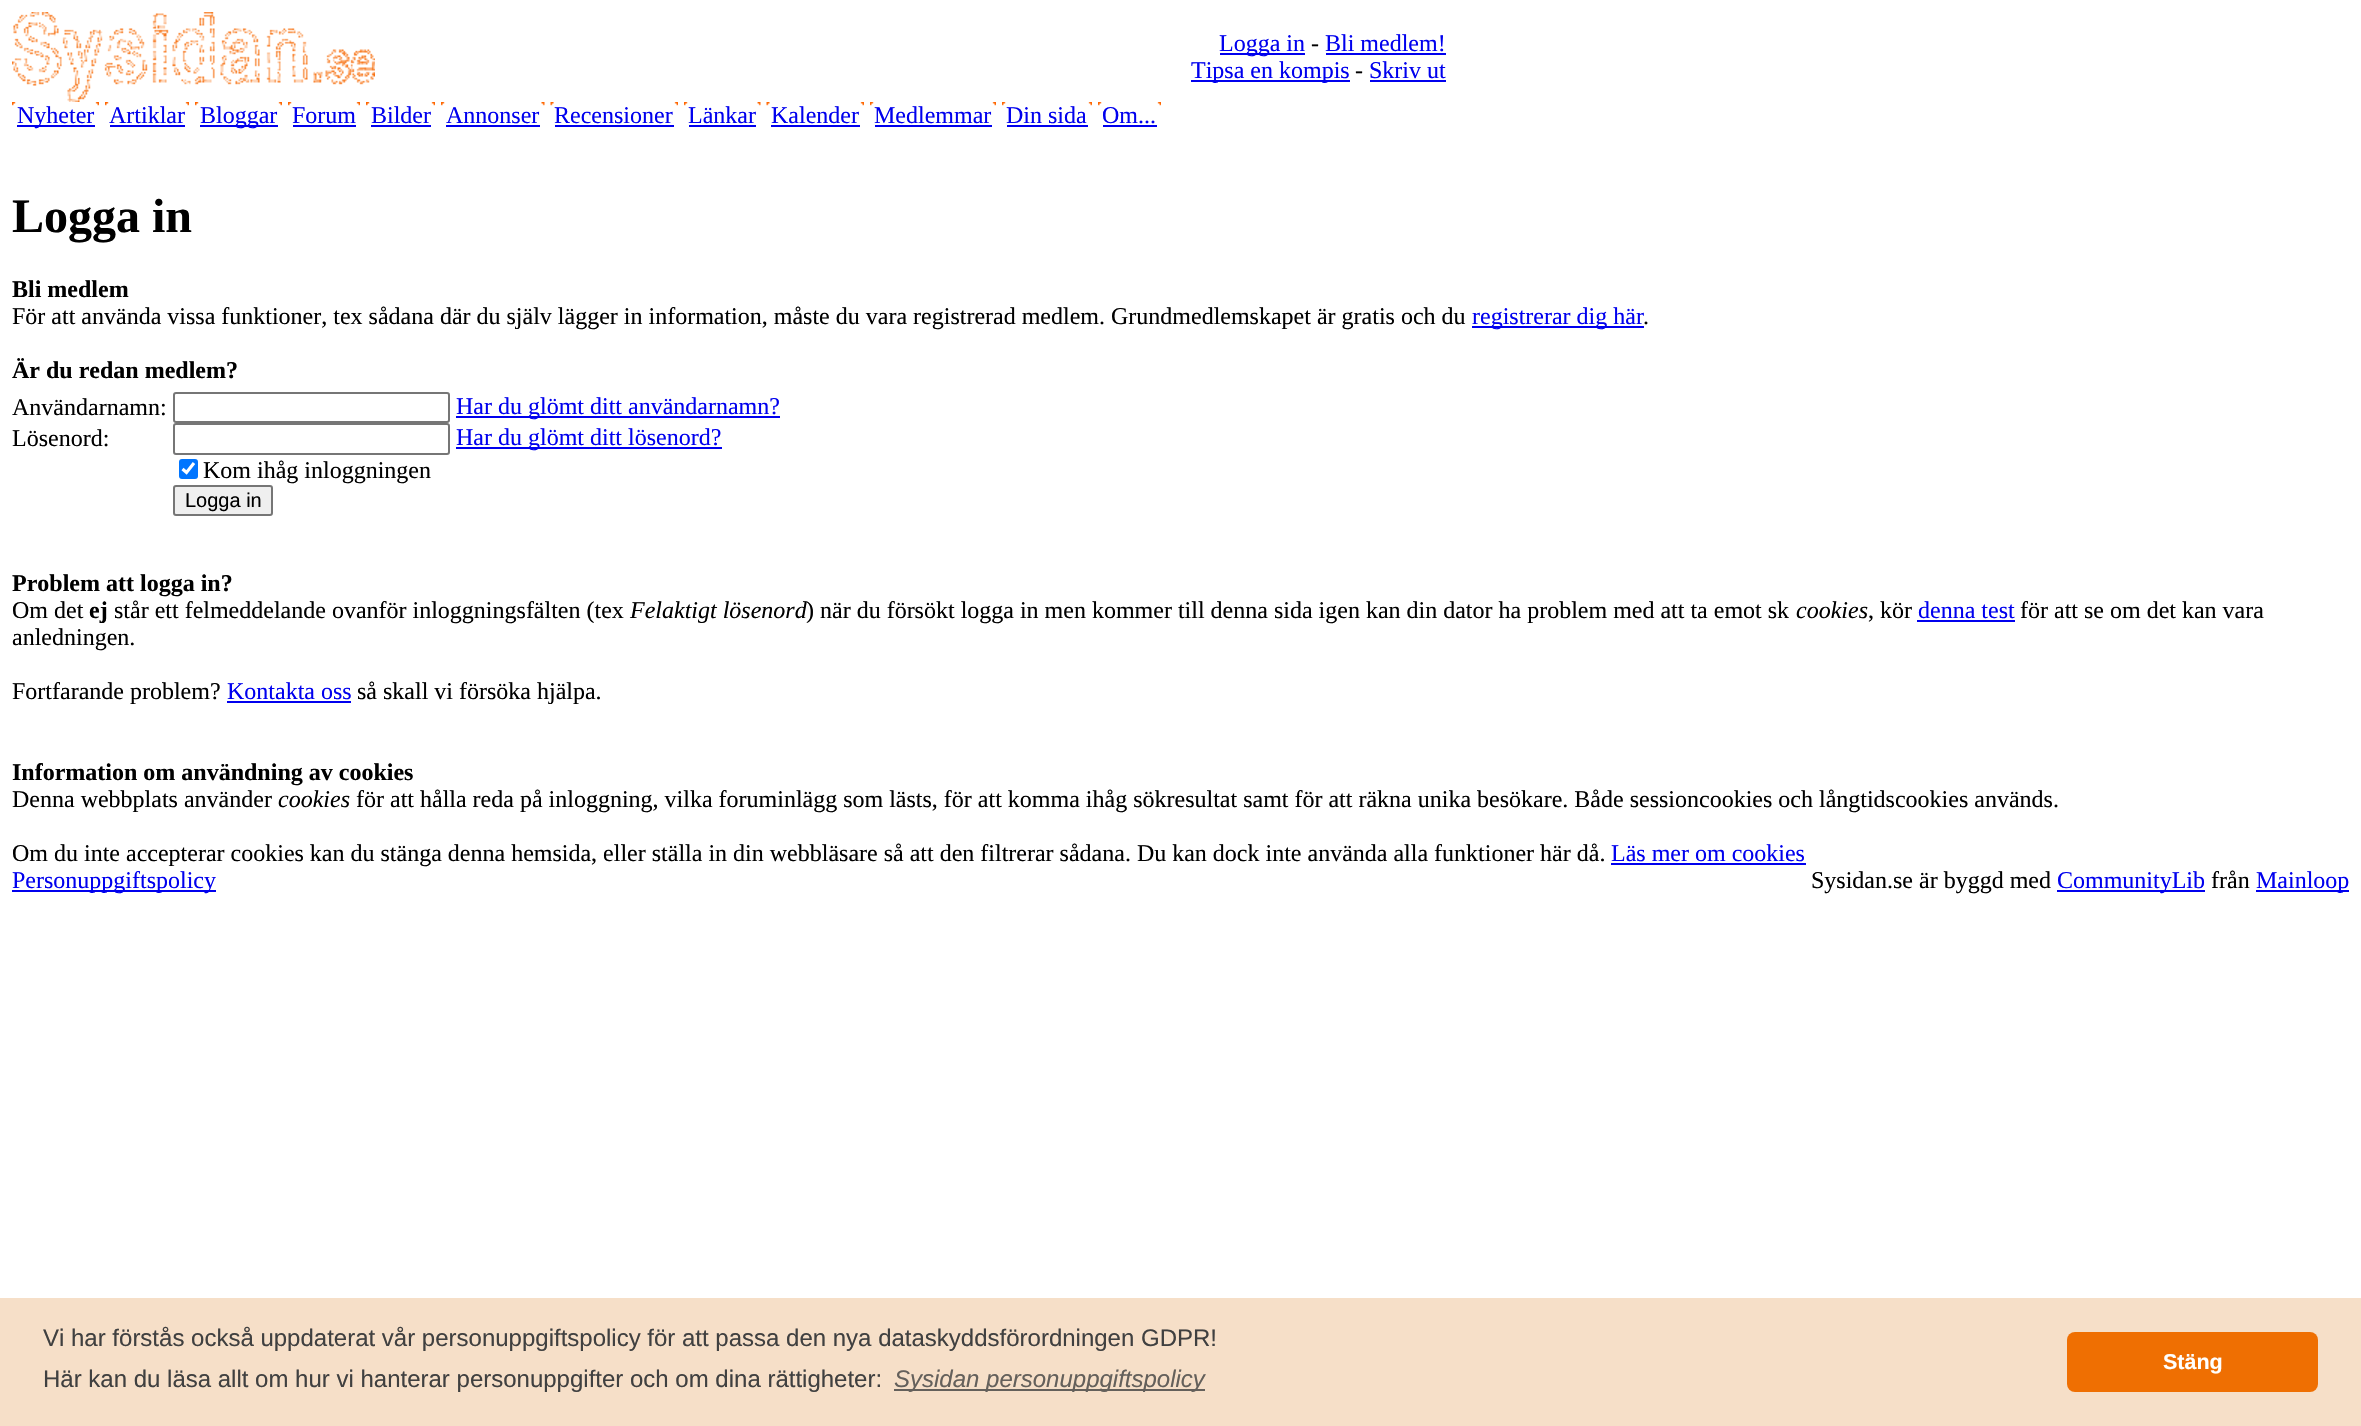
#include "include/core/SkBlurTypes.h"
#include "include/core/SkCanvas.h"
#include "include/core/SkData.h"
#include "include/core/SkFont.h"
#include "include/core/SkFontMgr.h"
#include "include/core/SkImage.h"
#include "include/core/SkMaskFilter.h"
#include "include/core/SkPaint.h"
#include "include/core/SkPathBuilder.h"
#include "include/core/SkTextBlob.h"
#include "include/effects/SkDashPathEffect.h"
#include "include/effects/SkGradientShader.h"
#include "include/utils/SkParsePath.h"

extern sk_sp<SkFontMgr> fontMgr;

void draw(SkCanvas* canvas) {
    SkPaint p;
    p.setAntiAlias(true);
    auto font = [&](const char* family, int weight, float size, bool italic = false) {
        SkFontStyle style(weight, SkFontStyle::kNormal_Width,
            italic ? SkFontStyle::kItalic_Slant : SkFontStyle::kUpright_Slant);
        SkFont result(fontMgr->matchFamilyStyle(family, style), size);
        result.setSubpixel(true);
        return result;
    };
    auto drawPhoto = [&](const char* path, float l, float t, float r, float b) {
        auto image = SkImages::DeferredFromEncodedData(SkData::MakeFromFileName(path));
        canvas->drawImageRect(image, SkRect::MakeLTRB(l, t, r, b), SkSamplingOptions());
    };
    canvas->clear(0xFFFFFFFF);
    drawPhoto("media/1.png", 12, 12, 375, 102);
    p.setColor(0xFF0000EE);
    canvas->drawRect(SkRect::MakeLTRB(1220, 53, 1305, 55), p);
    auto font1 = font("Liberation Serif", 400, 24);
    canvas->drawString("Logga in", 1219, 51, font1, p);
    p.setColor(0xFF000000);
    canvas->drawString("-", 1311, 51, font1, p);
    p.setColor(0xFF0000EE);
    canvas->drawString("Bli medlem!", 1325, 51, font1, p);
    canvas->drawRect(SkRect::MakeLTRB(1326, 53, 1446, 55), p);
    canvas->drawRect(SkRect::MakeLTRB(1191, 80, 1350, 82), p);
    canvas->drawString("Tipsa en kompis", 1191, 78, font1, p);
    p.setColor(0xFF000000);
    canvas->drawString("-", 1355, 78, font1, p);
    p.setColor(0xFF0000EE);
    canvas->drawString("Skriv ut", 1369, 78, font1, p);
    canvas->drawRect(SkRect::MakeLTRB(1370, 80, 1446, 82), p);
    drawPhoto("media/2.png", 12, 102, 16, 106);
    drawPhoto("media/3.png", 95, 102, 99, 106);
    drawPhoto("media/2.png", 105, 102, 109, 106);
    drawPhoto("media/3.png", 185, 102, 189, 106);
    drawPhoto("media/2.png", 195, 102, 199, 106);
    drawPhoto("media/3.png", 278, 102, 282, 106);
    drawPhoto("media/4.png", 288, 102, 292, 106);
    drawPhoto("media/5.png", 356, 102, 360, 106);
    drawPhoto("media/4.png", 366, 102, 370, 106);
    drawPhoto("media/5.png", 431, 102, 435, 106);
    drawPhoto("media/4.png", 441, 102, 445, 106);
    drawPhoto("media/6.png", 541, 102, 545, 106);
    drawPhoto("media/7.png", 550, 102, 554, 106);
    drawPhoto("media/5.png", 674, 102, 678, 106);
    drawPhoto("media/2.png", 684, 102, 688, 106);
    drawPhoto("media/8.png", 757, 102, 761, 106);
    drawPhoto("media/9.png", 766, 102, 770, 106);
    drawPhoto("media/3.png", 860, 102, 864, 106);
    drawPhoto("media/2.png", 870, 102, 874, 106);
    drawPhoto("media/3.png", 992, 102, 996, 106);
    drawPhoto("media/2.png", 1002, 102, 1006, 106);
    drawPhoto("media/3.png", 1088, 102, 1092, 106);
    drawPhoto("media/4.png", 1098, 102, 1102, 106);
    drawPhoto("media/5.png", 1157, 102, 1161, 106);
    canvas->drawRect(SkRect::MakeLTRB(17, 125, 95, 127), p);
    canvas->drawString("Nyheter", 17, 123, font1, p);
    canvas->drawString("Artiklar", 109, 123, font1, p);
    canvas->drawRect(SkRect::MakeLTRB(110, 125, 185, 127), p);
    canvas->drawRect(SkRect::MakeLTRB(200, 125, 278, 127), p);
    canvas->drawString("Bloggar", 200, 123, font1, p);
    canvas->drawString("Forum", 292, 123, font1, p);
    canvas->drawRect(SkRect::MakeLTRB(293, 125, 356, 127), p);
    canvas->drawString("Bilder", 371, 123, font1, p);
    canvas->drawRect(SkRect::MakeLTRB(371, 125, 431, 127), p);
    canvas->drawString("Annonser", 446, 123, font1, p);
    canvas->drawRect(SkRect::MakeLTRB(446, 125, 540, 127), p);
    canvas->drawString("Recensioner", 554, 123, font1, p);
    canvas->drawRect(SkRect::MakeLTRB(555, 125, 674, 127), p);
    canvas->drawString("Länkar", 688, 123, font1, p);
    canvas->drawRect(SkRect::MakeLTRB(689, 125, 756, 127), p);
    canvas->drawString("Kalender", 771, 123, font1, p);
    canvas->drawRect(SkRect::MakeLTRB(771, 125, 860, 127), p);
    canvas->drawString("Medlemmar", 874, 123, font1, p);
    canvas->drawRect(SkRect::MakeLTRB(875, 125, 992, 127), p);
    canvas->drawString("Din sida", 1006, 123, font1, p);
    canvas->drawRect(SkRect::MakeLTRB(1007, 125, 1088, 127), p);
    canvas->drawString("Om...", 1102, 123, font1, p);
    canvas->drawRect(SkRect::MakeLTRB(1103, 125, 1157, 127), p);
    auto font2 = font("Liberation Serif", 700, 48);
    p.setColor(0xFF000000);
    canvas->drawString("Logga in", 12, 232, font2, p);
    auto font3 = font("Liberation Serif", 700, 24);
    canvas->drawString("Bli medlem", 12, 297, font3, p);
    canvas->drawString("För att använda vissa funktioner, tex sådana där du själv lägger in information, måste du vara registrerad medlem. Grundmedlemskapet är gratis och du", 12, 324, font1, p);
    p.setColor(0xFF0000EE);
    canvas->drawRect(SkRect::MakeLTRB(1472, 326, 1644, 328), p);
    canvas->drawString("registrerar dig här", 1472, 324, font1, p);
    p.setColor(0xFF000000);
    canvas->drawString(".", 1643, 324, font1, p);
    canvas->drawString("Är du redan medlem?", 12, 378, font3, p);
    canvas->drawString("Användarnamn:", 12, 415, font1, p);
    p.setStyle(SkPaint::kStroke_Style);
    p.setStrokeWidth(2);
    p.setColor(0xFF767676);
    canvas->drawRoundRect(SkRect::MakeLTRB(174, 393, 449, 422), 2, 2, p);
    p.setStyle(SkPaint::kFill_Style);
    p.setColor(0xFF0000EE);
    canvas->drawRect(SkRect::MakeLTRB(456, 416, 780, 418), p);
    canvas->drawString("Har du glömt ditt användarnamn?", 456, 414, font1, p);
    p.setColor(0xFF000000);
    canvas->drawString("Lösenord:", 12, 446, font1, p);
    p.setStyle(SkPaint::kStroke_Style);
    p.setColor(0xFF767676);
    canvas->drawRoundRect(SkRect::MakeLTRB(174, 424, 449, 454), 2, 2, p);
    p.setStyle(SkPaint::kFill_Style);
    p.setColor(0xFF0000EE);
    canvas->drawRect(SkRect::MakeLTRB(456, 447, 722, 449), p);
    canvas->drawString("Har du glömt ditt lösenord?", 456, 445, font1, p);
    p.setColor(0xFF0075FF);
    canvas->drawRoundRect(SkRect::MakeLTRB(179, 459, 198, 479), 3, 3, p);
    p.setStyle(SkPaint::kStroke_Style);
    p.setStrokeWidth(3.1f);
    p.setColor(0xFFFFFFFF);
    canvas->drawPath(SkPathBuilder().moveTo(182.5f, 469).lineTo(186.5f, 472.5f).lineTo(194, 463).detach(), p);
    p.setStyle(SkPaint::kFill_Style);
    p.setColor(0xFF000000);
    canvas->drawString("Kom ihåg inloggningen", 203, 478, font1, p);
    p.setColor(0xFFEFEFEF);
    canvas->drawRoundRect(SkRect::MakeLTRB(174, 486, 272, 515), 2, 2, p);
    p.setStyle(SkPaint::kStroke_Style);
    p.setStrokeWidth(2);
    p.setColor(0xFF767676);
    canvas->drawRoundRect(SkRect::MakeLTRB(174, 486, 272, 515), 2, 2, p);
    auto font4 = font("Liberation Sans", 400, 20);
    p.setStyle(SkPaint::kFill_Style);
    p.setColor(0xFF000000);
    canvas->drawString("Logga in", 185, 507, font4, p);
    canvas->drawString("Problem att logga in?", 12, 591, font3, p);
    canvas->drawString("Om det", 12, 618, font1, p);
    canvas->drawString("ej", 89, 618, font3, p);
    canvas->drawString("står ett felmeddelande ovanför inloggningsfälten (tex", 114, 618, font1, p);
    auto font5 = font("Liberation Serif", 400, 24, true);
    canvas->drawString("Felaktigt lösenord", 630, 618, font5, p);
    canvas->drawString(") när du försökt logga in men kommer till denna sida igen kan din dator ha problem med att ta emot sk", 806, 618, font1, p);
    canvas->drawString("cookies", 1796, 618, font5, p);
    canvas->drawString(", kör", 1868, 618, font1, p);
    p.setColor(0xFF0000EE);
    canvas->drawString("denna test", 1918, 618, font1, p);
    canvas->drawRect(SkRect::MakeLTRB(1917, 620, 2015, 622), p);
    p.setColor(0xFF000000);
    {
        const struct { const char* s; float x, y; } items[] = {
            {"för att se om det kan vara", 2020, 618},
            {"anledningen.", 12, 645},
            {"Fortfarande problem?", 12, 699},
        };
        for (auto [s, x, y] : items) {
            canvas->drawString(s, x, y, font1, p);
        }
    }
    p.setColor(0xFF0000EE);
    canvas->drawString("Kontakta oss", 227, 699, font1, p);
    canvas->drawRect(SkRect::MakeLTRB(227, 701, 351, 703), p);
    p.setColor(0xFF000000);
    canvas->drawString("så skall vi försöka hjälpa.", 357, 699, font1, p);
    canvas->drawString("Information om användning av cookies", 12, 780, font3, p);
    canvas->drawString("Denna webbplats använder", 12, 807, font1, p);
    canvas->drawString("cookies", 278, 807, font5, p);
    canvas->drawString("för att hålla reda på inloggning, vilka foruminlägg som lästs, för att komma ihåg sökresultat samt för att räkna unika besökare. Både sessioncookies och långtidscookies används.", 356, 807, font1, p);
    canvas->drawString("Om du inte accepterar cookies kan du stänga denna hemsida, eller ställa in din webbläsare så att den filtrerar sådana. Du kan dock inte använda alla funktioner här då.", 12, 861, font1, p);
    p.setColor(0xFF0000EE);
    canvas->drawString("Läs mer om cookies", 1611, 861, font1, p);
    canvas->drawRect(SkRect::MakeLTRB(1611, 863, 1806, 865), p);
    canvas->drawRect(SkRect::MakeLTRB(12, 890, 216, 892), p);
    canvas->drawString("Personuppgiftspolicy", 12, 888, font1, p);
    p.setColor(0xFF000000);
    canvas->drawString("Sysidan.se är byggd med", 1811, 888, font1, p);
    p.setColor(0xFF0000EE);
    canvas->drawRect(SkRect::MakeLTRB(2057, 890, 2205, 892), p);
    canvas->drawString("CommunityLib", 2057, 888, font1, p);
    p.setColor(0xFF000000);
    canvas->drawString("från", 2211, 888, font1, p);
    p.setColor(0xFF0000EE);
    canvas->drawRect(SkRect::MakeLTRB(2256, 890, 2349, 892), p);
    canvas->drawString("Mainloop", 2256, 888, font1, p);
    p.setColor(0xFFF6DFC8);
    canvas->drawRect(SkRect::MakeLTRB(0, 1298, 2361, 1426), p);
    auto font6 = font("Liberation Sans", 400, 24);
    p.setColor(0xFF404040);
    canvas->drawString("Vi har förstås också uppdaterat vår personuppgiftspolicy för att passa den nya dataskyddsförordningen GDPR!", 43, 1346, font6, p);
    canvas->drawString("Här kan du läsa allt om hur vi hanterar personuppgifter och om dina rättigheter:", 43, 1387, font6, p);
    p.setColor(0xFF64605B);
    canvas->drawRect(SkRect::MakeLTRB(894, 1389, 1205, 1391), p);
    auto font7 = font("Liberation Sans", 400, 24, true);
    canvas->drawString("Sysidan personuppgiftspolicy", 894, 1387, font7, p);
    p.setColor(0xFFEF6F02);
    canvas->drawRoundRect(SkRect::MakeLTRB(2067, 1332, 2318, 1392), 8, 8, p);
    auto font8 = font("Liberation Sans", 700, 21.5f);
    p.setColor(0xFFFFFFFF);
    canvas->drawString("Stäng", 2163, 1369, font8, p);
}
